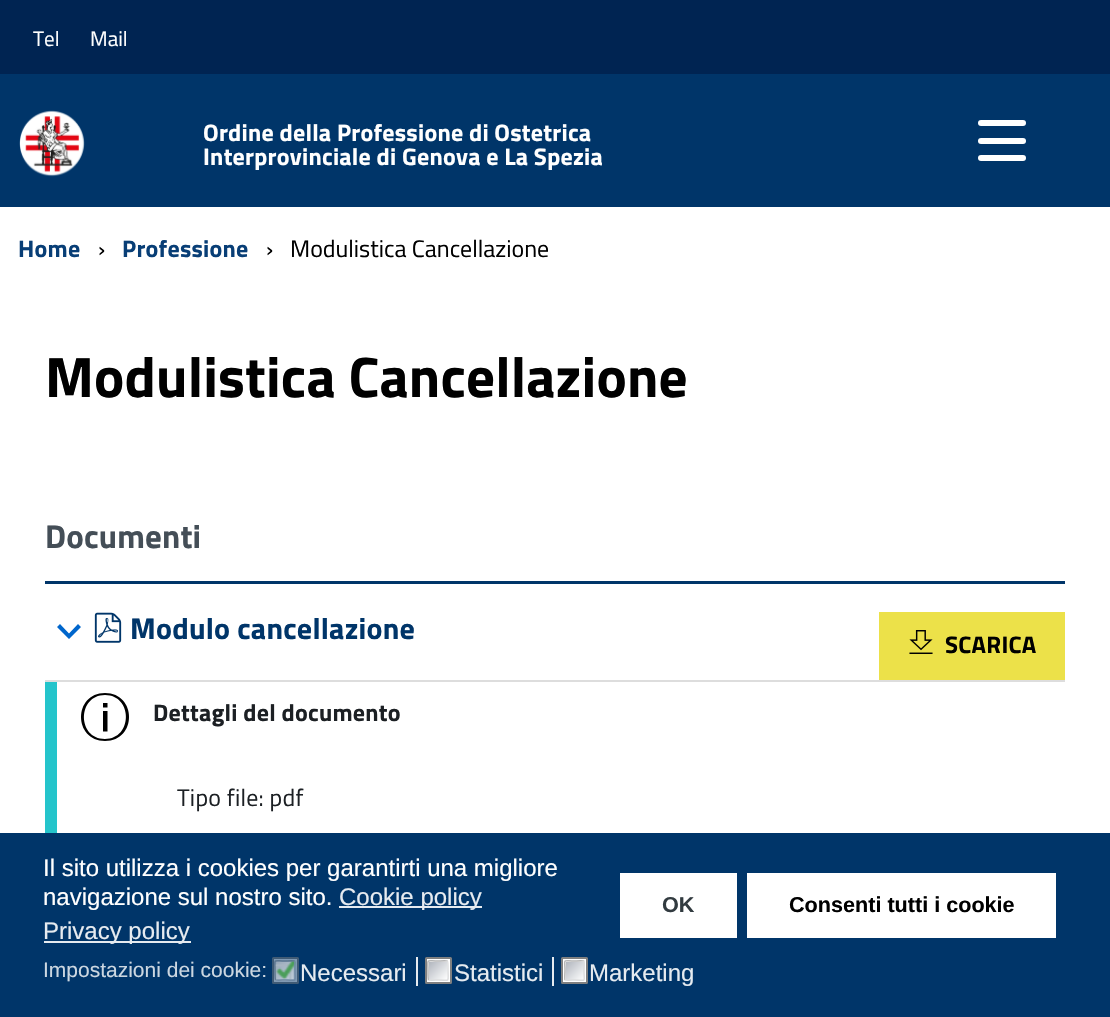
#include "include/core/SkBlurTypes.h"
#include "include/core/SkCanvas.h"
#include "include/core/SkData.h"
#include "include/core/SkFont.h"
#include "include/core/SkFontMgr.h"
#include "include/core/SkImage.h"
#include "include/core/SkMaskFilter.h"
#include "include/core/SkPaint.h"
#include "include/core/SkPathBuilder.h"
#include "include/core/SkTextBlob.h"
#include "include/effects/SkDashPathEffect.h"
#include "include/effects/SkGradientShader.h"
#include "include/utils/SkParsePath.h"

extern sk_sp<SkFontMgr> fontMgr;

void draw(SkCanvas* canvas) {
    SkPaint p;
    p.setAntiAlias(true);
    auto font = [&](const char* family, int weight, float size, bool italic = false) {
        SkFontStyle style(weight, SkFontStyle::kNormal_Width,
            italic ? SkFontStyle::kItalic_Slant : SkFontStyle::kUpright_Slant);
        SkFont result(fontMgr->matchFamilyStyle(family, style), size);
        result.setSubpixel(true);
        return result;
    };
    auto drawTracked = [&](const char* s, float x, float y, const SkFont& font, const SkPaint& ink, float letter, float word) {
        std::vector<SkGlyphID> glyphs(font.countText(s, strlen(s), SkTextEncoding::kUTF8));
        std::vector<float> xs(glyphs.size());
        font.textToGlyphs(s, strlen(s), SkTextEncoding::kUTF8, glyphs);
        font.getXPos(glyphs, xs, x);
        float extra = 0;
        for (size_t i = 0; i < glyphs.size(); i++) {
            xs[i] += extra;
            extra += letter + word * (glyphs[i] == font.unicharToGlyph(' '));
        }
        canvas->drawTextBlob(SkTextBlob::MakeFromPosHGlyphs(glyphs, xs, y, font), 0, 0, ink);
    };
    auto drawPhoto = [&](const char* path, float l, float t, float r, float b) {
        auto image = SkImages::DeferredFromEncodedData(SkData::MakeFromFileName(path));
        canvas->drawImageRect(image, SkRect::MakeLTRB(l, t, r, b), SkSamplingOptions());
    };
    canvas->clear(0xFFFFFFFF);
    p.setColor(0xFF002452);
    canvas->drawRect(SkRect::MakeLTRB(0, 0, 1110, 74), p);
    auto font1 = font("Titillium Web", 400, 21);
    p.setColor(0xFFFFFFFF);
    canvas->drawString("Tel", 33, 46, font1, p);
    canvas->drawString("Mail", 90, 46, font1, p);
    p.setColor(0xFF003569);
    canvas->drawRect(SkRect::MakeLTRB(0, 74, 1110, 207), p);
    drawPhoto("media/1.png", 19, 110, 85, 177);
    auto font2 = font("Titillium Web", 700, 24);
    p.setColor(0xFFFFFFFF);
    drawTracked("Ordine della Professione di Ostetrica", 203, 141, font2, p, 0.25f, 0);
    drawTracked("Interprovinciale di Genova e La Spezia", 203, 165, font2, p, 0.25f, 0);
    canvas->drawRoundRect(SkRect::MakeLTRB(978, 138, 1026, 144), 3, 3, p);
    canvas->drawRoundRect(SkRect::MakeLTRB(978, 120, 1026, 126), 3, 3, p);
    canvas->drawRoundRect(SkRect::MakeLTRB(978, 155, 1026, 161), 3, 3, p);
    p.setColor(0xFF083E76);
    drawTracked("Home", 18, 257, font2, p, 0.25f, 0);
    auto font3 = font("Titillium Web", 400, 24);
    p.setColor(0xFF000000);
    canvas->drawString("›", 98, 257, font3, p);
    p.setColor(0xFF083E76);
    drawTracked("Professione", 122, 257, font2, p, 0.25f, 0);
    p.setColor(0xFF000000);
    canvas->drawString("›", 266, 257, font3, p);
    canvas->drawString("Modulistica Cancellazione", 290, 257, font3, p);
    auto font4 = font("Titillium Web", 700, 57);
    drawTracked("Modulistica Cancellazione", 45, 397, font4, p, 0.15f, 0);
    auto font5 = font("Titillium Web", 700, 33);
    p.setColor(0xFF444E57);
    drawTracked("Documenti", 45, 548, font5, p, 0.15f, 0);
    p.setColor(0xFF003569);
    canvas->drawRect(SkRect::MakeLTRB(45, 581, 1065, 584), p);
    p.setColor(0xFF0066CC);
    canvas->drawPath(SkPathBuilder().moveTo(60, 624).lineTo(57, 627).lineTo(69, 639).lineTo(81, 627).lineTo(78, 624).lineTo(69, 633.5f).close().detach(), p);
    p.setColor(0xFFDDDDDD);
    canvas->drawRect(SkRect::MakeLTRB(45, 680, 1065, 682), p);
    drawPhoto("media/2.png", 94, 612, 122, 643);
    auto font6 = font("Titillium Web", 700, 30);
    p.setColor(0xFF003569);
    drawTracked("Modulo cancellazione", 130, 639, font6, p, 0.25f, 0);
    p.setColor(0xFFECE149);
    canvas->drawRect(SkRect::MakeLTRB(879, 612, 1065, 680), p);
    drawPhoto("media/3.png", 909, 630, 933, 654);
    p.setColor(0xFF000000);
    drawTracked("SCARICA", 945, 653, font2, p, 0.25f, 0);
    canvas->drawPath(SkPathBuilder().moveTo(105, 695).cubicTo(133, 695, 133, 739, 105, 739).cubicTo(77, 739, 77, 695, 105, 695).close().moveTo(105, 693).cubicTo(73, 693, 73, 741, 105, 741).cubicTo(137, 741, 137, 693, 105, 693).close().detach(), p);
    canvas->drawPath(SkPathBuilder().moveTo(103, 707.5f).lineTo(103, 703).lineTo(107.5f, 703).lineTo(107.5f, 707.5f).close().moveTo(103, 731.5f).lineTo(103, 711).lineTo(107.5f, 711).lineTo(107.5f, 731.5f).close().detach(), p);
    p.setColor(0xFF24C4CB);
    canvas->drawRect(SkRect::MakeLTRB(45, 682, 57, 833), p);
    p.setColor(0xFF1C2024);
    drawTracked("Dettagli del documento", 153, 721, font2, p, 0.25f, 0);
    drawTracked("Tipo file: pdf", 177, 806, font3, p, 0.25f, 0);
    p.setColor(0xFF003569);
    canvas->drawRect(SkRect::MakeLTRB(0, 833, 1110, 1017), p);
    auto font7 = font("Liberation Sans", 400, 24);
    p.setColor(0xFFFFFFFF);
    canvas->drawString("Il sito utilizza i cookies per garantirti una migliore", 43, 876, font7, p);
    canvas->drawString("navigazione sul nostro sito.", 43, 905, font7, p);
    p.setColor(0xFFE6EBF0);
    canvas->drawRect(SkRect::MakeLTRB(339, 906, 482, 908), p);
    canvas->drawString("Cookie policy", 339, 905, font7, p);
    canvas->drawRect(SkRect::MakeLTRB(44, 941, 191, 943), p);
    canvas->drawString("Privacy policy", 43, 939, font7, p);
    p.setColor(0xFFFFFFFF);
    canvas->drawRect(SkRect::MakeLTRB(620, 873, 737, 938), p);
    auto font8 = font("Liberation Sans", 700, 21.6f);
    p.setColor(0xFF323B40);
    canvas->drawString("OK", 662, 912, font8, p);
    p.setColor(0xFFFFFFFF);
    canvas->drawRect(SkRect::MakeLTRB(747, 873, 1056, 938), p);
    p.setColor(0xFF000000);
    canvas->drawString("Consenti tutti i cookie", 789, 912, font8, p);
    auto font9 = font("Liberation Sans", 400, 21);
    p.setColor(0xFFCCD7E1);
    canvas->drawString("Impostazioni dei cookie:", 43, 977, font9, p);
    p.setColor(0xFF809AB4);
    canvas->drawRoundRect(SkRect::MakeLTRB(273, 958, 298, 983), 0.5f, 0.5f, p);
    p.setStyle(SkPaint::kStroke_Style);
    p.setStrokeWidth(2);
    p.setColor(0xFF405B75);
    canvas->drawRoundRect(SkRect::MakeLTRB(273, 958, 298, 983), 0.5f, 0.5f, p);
    drawPhoto("media/4.png", 274, 960, 296, 981);
    p.setStrokeWidth(1.5f);
    p.setColor(0xFF6E89A4);
    canvas->drawPath(SkPathBuilder().moveTo(294.5f, 961).cubicTo(295, 961.5f, 295, 969, 295, 970.5f).cubicTo(295, 983, 297.5f, 980, 285, 980).cubicTo(283.5f, 980, 276, 980.5f, 275.5f, 980).detach(), p);
    p.setColor(0xFF5A748E);
    canvas->drawPath(SkPathBuilder().moveTo(275.5f, 980).cubicTo(275, 979.5f, 275, 972, 275, 970.5f).cubicTo(275, 958, 272.5f, 961, 285, 961).cubicTo(286.5f, 961, 294, 960.5f, 294.5f, 961).detach(), p);
    p.setStyle(SkPaint::kFill_Style);
    p.setColor(0xFFE6EBF0);
    canvas->drawRect(SkRect::MakeLTRB(416, 957, 418, 986), p);
    canvas->drawString("Necessari", 300, 981, font7, p);
    p.setColor(0xFFFFFFFF);
    canvas->drawRoundRect(SkRect::MakeLTRB(426, 958, 451, 983), 0.5f, 0.5f, p);
    p.setStyle(SkPaint::kStroke_Style);
    p.setStrokeWidth(2);
    p.setColor(0xFF808080);
    canvas->drawRoundRect(SkRect::MakeLTRB(426, 958, 451, 983), 0.5f, 0.5f, p);
    p.setStyle(SkPaint::kFill_Style);
    {
        const SkColor colors[] = {0xFFB1B6BE, 0xFFFFFFFF};
        const float stops[] = {0, 1};
        const SkPoint ends[] = {{429, 962}, {447, 980}};
        p.setShader(SkGradientShader::MakeLinear(ends, colors, stops, 2, SkTileMode::kClamp));
        p.setAlpha(255);
    }
    canvas->drawRect(SkRect::MakeLTRB(429, 962, 447, 980), p);
    p.setStyle(SkPaint::kStroke_Style);
    p.setStrokeWidth(1.5f);
    p.setShader(nullptr);
    p.setColor(0xFFDCDDDE);
    canvas->drawPath(SkPathBuilder().moveTo(447.5f, 961).cubicTo(448, 961.5f, 448, 969, 448, 970.5f).cubicTo(448, 983, 450.5f, 980, 438, 980).cubicTo(436.5f, 980, 429, 980.5f, 428.5f, 980).detach(), p);
    p.setColor(0xFFB3B3B3);
    canvas->drawPath(SkPathBuilder().moveTo(428.5f, 980).cubicTo(428, 979.5f, 428, 972, 428, 970.5f).cubicTo(428, 958, 425.5f, 961, 438, 961).cubicTo(439.5f, 961, 447, 960.5f, 447.5f, 961).detach(), p);
    p.setStyle(SkPaint::kFill_Style);
    p.setColor(0xFFE6EBF0);
    canvas->drawRect(SkRect::MakeLTRB(552, 957, 554, 986), p);
    canvas->drawString("Statistici", 454, 981, font7, p);
    p.setColor(0xFFFFFFFF);
    canvas->drawRoundRect(SkRect::MakeLTRB(562, 958, 587, 983), 0.5f, 0.5f, p);
    p.setStyle(SkPaint::kStroke_Style);
    p.setStrokeWidth(2);
    p.setColor(0xFF808080);
    canvas->drawRoundRect(SkRect::MakeLTRB(562, 958, 587, 983), 0.5f, 0.5f, p);
    p.setStyle(SkPaint::kFill_Style);
    {
        const SkColor colors[] = {0xFFB1B6BE, 0xFFFFFFFF};
        const float stops[] = {0, 1};
        const SkPoint ends[] = {{566, 962}, {584, 980}};
        p.setShader(SkGradientShader::MakeLinear(ends, colors, stops, 2, SkTileMode::kClamp));
        p.setAlpha(255);
    }
    canvas->drawRect(SkRect::MakeLTRB(566, 962, 584, 980), p);
    p.setStyle(SkPaint::kStroke_Style);
    p.setStrokeWidth(1.5f);
    p.setShader(nullptr);
    p.setColor(0xFFDCDDDE);
    canvas->drawPath(SkPathBuilder().moveTo(584, 961).cubicTo(584.5f, 961.5f, 584, 969, 584, 970.5f).cubicTo(584, 983, 587, 980, 574.5f, 980).cubicTo(573, 980, 565.5f, 980.5f, 565, 980).detach(), p);
    p.setColor(0xFFB3B3B3);
    canvas->drawPath(SkPathBuilder().moveTo(565, 980).cubicTo(564.5f, 979.5f, 565, 972, 565, 970.5f).cubicTo(565, 958, 562, 961, 574.5f, 961).cubicTo(576, 961, 583.5f, 960.5f, 584, 961).detach(), p);
    p.setStyle(SkPaint::kFill_Style);
    p.setColor(0xFFE6EBF0);
    canvas->drawString("Marketing", 589, 981, font7, p);
}
